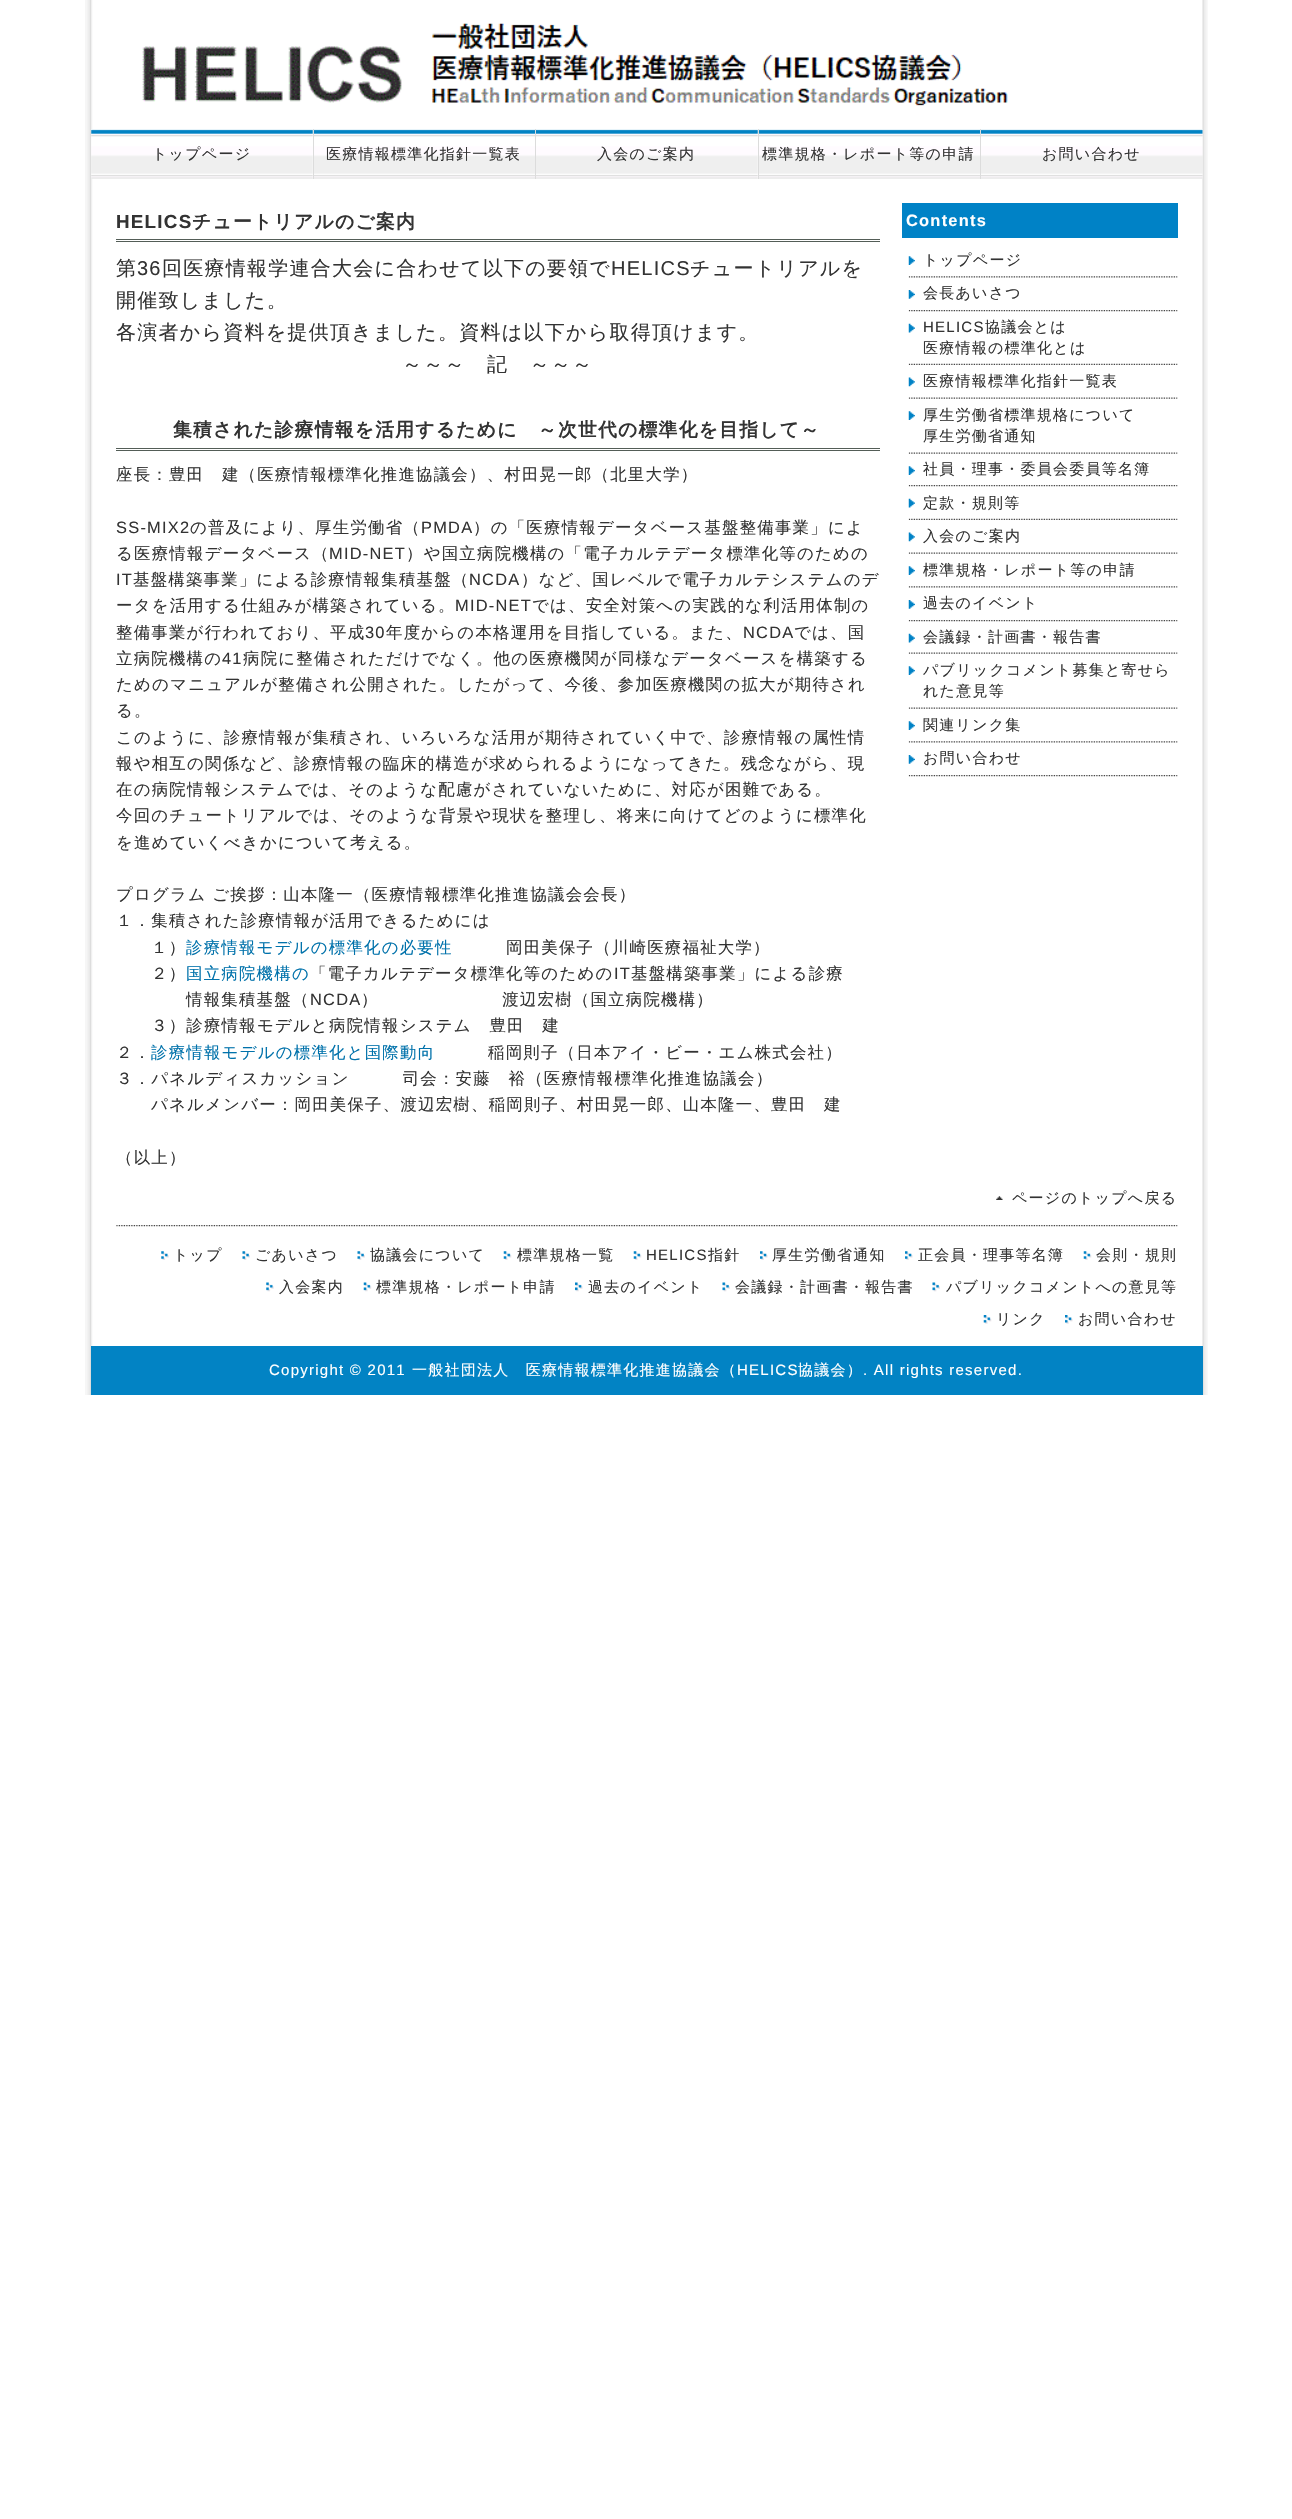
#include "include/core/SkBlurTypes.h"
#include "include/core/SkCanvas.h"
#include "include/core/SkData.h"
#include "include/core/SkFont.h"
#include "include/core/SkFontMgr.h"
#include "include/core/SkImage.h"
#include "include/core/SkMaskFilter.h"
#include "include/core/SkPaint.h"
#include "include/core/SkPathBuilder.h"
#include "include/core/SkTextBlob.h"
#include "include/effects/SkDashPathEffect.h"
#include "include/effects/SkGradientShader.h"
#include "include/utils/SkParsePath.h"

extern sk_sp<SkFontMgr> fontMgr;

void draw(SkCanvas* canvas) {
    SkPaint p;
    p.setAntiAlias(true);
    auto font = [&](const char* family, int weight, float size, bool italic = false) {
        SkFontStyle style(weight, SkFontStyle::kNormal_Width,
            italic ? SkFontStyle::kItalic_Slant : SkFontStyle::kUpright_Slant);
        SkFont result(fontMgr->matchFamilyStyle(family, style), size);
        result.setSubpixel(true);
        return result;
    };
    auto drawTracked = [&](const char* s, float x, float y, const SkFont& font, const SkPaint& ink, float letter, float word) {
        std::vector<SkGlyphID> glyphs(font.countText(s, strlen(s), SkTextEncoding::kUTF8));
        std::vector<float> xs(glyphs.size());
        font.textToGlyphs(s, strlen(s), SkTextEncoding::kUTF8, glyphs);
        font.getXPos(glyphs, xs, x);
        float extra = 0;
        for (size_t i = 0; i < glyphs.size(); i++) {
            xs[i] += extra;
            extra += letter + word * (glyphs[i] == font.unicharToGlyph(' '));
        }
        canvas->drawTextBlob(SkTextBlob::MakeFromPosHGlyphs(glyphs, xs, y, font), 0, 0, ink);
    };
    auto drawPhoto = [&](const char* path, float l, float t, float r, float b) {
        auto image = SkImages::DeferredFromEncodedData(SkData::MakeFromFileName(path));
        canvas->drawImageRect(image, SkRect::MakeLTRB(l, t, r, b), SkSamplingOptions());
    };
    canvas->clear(0xFFFFFFFF);
    drawPhoto("media/1.png", 85, 0, 93, 1395);
    drawPhoto("media/2.png", 1202, 0, 1208, 1395);
    drawPhoto("media/3.png", 142, 23, 1008, 106);
    drawPhoto("media/4.png", 91, 129, 313, 179);
    auto font1 = font("WenQuanYi Zen Hei", 500, 15);
    p.setColor(0xFF333333);
    drawTracked("トップページ", 152, 159, font1, p, 1.25f, 0);
    drawPhoto("media/5.png", 312, 129, 535, 179);
    p.setColor(0xFFDCDCDC);
    canvas->drawRect(SkRect::MakeLTRB(313, 129, 314, 179), p);
    p.setColor(0xFF333333);
    drawTracked("医療情報標準化指針一覧表", 326, 159, font1, p, 1.25f, 0);
    drawPhoto("media/6.png", 536, 129, 758, 179);
    p.setColor(0xFFDCDCDC);
    canvas->drawRect(SkRect::MakeLTRB(535, 129, 536, 179), p);
    p.setColor(0xFF333333);
    drawTracked("入会のご案内", 597, 159, font1, p, 1.25f, 0);
    drawPhoto("media/5.png", 757, 129, 980, 179);
    p.setColor(0xFFDCDCDC);
    canvas->drawRect(SkRect::MakeLTRB(758, 129, 759, 179), p);
    p.setColor(0xFF333333);
    drawTracked("標準規格・レポート等の申請", 762, 159, font1, p, 1.25f, 0);
    drawPhoto("media/7.png", 981, 129, 1203, 179);
    p.setColor(0xFFDCDCDC);
    canvas->drawRect(SkRect::MakeLTRB(980, 129, 981, 179), p);
    p.setColor(0xFF333333);
    drawTracked("お問い合わせ", 1042, 159, font1, p, 1.25f, 0);
    p.setColor(0xFF535D57);
    canvas->drawRect(SkRect::MakeLTRB(116, 239, 880, 240), p);
    canvas->drawRect(SkRect::MakeLTRB(116, 241, 880, 242), p);
    auto font2 = font("Liberation Sans", 700, 18.8f);
    p.setColor(0xFF333333);
    drawTracked("HELICS", 116, 228, font2, p, 1.25f, 0);
    auto font3 = font("WenQuanYi Zen Hei", 700, 18.8f);
    drawTracked("チュートリアルのご案内", 192, 228, font3, p, 1.25f, 0);
    auto font4 = font("WenQuanYi Zen Hei", 500, 20);
    drawTracked("第", 116, 275, font4, p, 1.25f, 0);
    auto font5 = font("Liberation Sans", 400, 20);
    drawTracked("36", 137, 275, font5, p, 1.25f, 0);
    drawTracked("回医療情報学連合大会に合わせて以下の要領で", 162, 275, font4, p, 1.25f, 0);
    drawTracked("HELICS", 611, 275, font5, p, 1.25f, 0);
    {
        const struct { const char* s; float x, y; } items[] = {
            {"チュートリアルを", 690, 275},
            {"開催致しました。", 116, 307},
            {"各演者から資料を提供頂きました。資料は以下から取得頂けます。", 116, 339},
            {"～～～　記　～～～", 402, 371},
        };
        for (auto [s, x, y] : items) {
            drawTracked(s, x, y, font4, p, 1.25f, 0);
        }
    }
    p.setColor(0xFF535D57);
    canvas->drawRect(SkRect::MakeLTRB(116, 448, 880, 449), p);
    canvas->drawRect(SkRect::MakeLTRB(116, 450, 880, 451), p);
    p.setColor(0xFF333333);
    drawTracked("集積された診療情報を活用するために　～次世代の標準化を目指して～", 173, 436, font3, p, 1.25f, 0);
    auto font6 = font("WenQuanYi Zen Hei", 500, 16.4f);
    drawTracked("座長：豊田　建（医療情報標準化推進協議会）、村田晃一郎（北里大学）", 116, 480, font6, p, 1.25f, 0);
    auto font7 = font("Liberation Sans", 400, 16.4f);
    drawTracked("SS-MIX2", 116, 533, font7, p, 1.25f, 0);
    drawTracked("の普及により、厚生労働省（", 190, 533, font6, p, 1.25f, 0);
    drawTracked("PMDA", 421, 533, font7, p, 1.25f, 0);
    drawTracked("）の「医療情報データベース基盤整備事業」によ", 473, 533, font6, p, 1.25f, 0);
    drawTracked("る医療情報データベース（", 116, 559, font6, p, 1.25f, 0);
    drawTracked("MID-NET", 329, 559, font7, p, 1.25f, 0);
    drawTracked("）や国立病院機構の「電子カルテデータ標準化等のための", 406, 559, font6, p, 1.25f, 0);
    drawTracked("IT", 116, 585, font7, p, 1.25f, 0);
    drawTracked("基盤構築事業」による診療情報集積基盤（", 133, 585, font6, p, 1.25f, 0);
    drawTracked("NCDA", 469, 585, font7, p, 1.25f, 0);
    drawTracked("）など、国レベルで電子カルテシステムのデ", 521, 585, font6, p, 1.25f, 0);
    drawTracked("ータを活用する仕組みが構築されている。", 116, 611, font6, p, 1.25f, 0);
    drawTracked("MID-NET", 455, 611, font7, p, 1.25f, 0);
    drawTracked("では、安全対策への実践的な利活用体制の", 532, 611, font6, p, 1.25f, 0);
    drawTracked("整備事業が行われており、平成", 116, 638, font6, p, 1.25f, 0);
    drawTracked("30", 365, 638, font7, p, 1.25f, 0);
    drawTracked("年度からの本格運用を目指している。また、", 386, 638, font6, p, 1.25f, 0);
    drawTracked("NCDA", 743, 638, font7, p, 1.25f, 0);
    drawTracked("では、国", 794, 638, font6, p, 1.25f, 0);
    drawTracked("立病院機構の", 116, 664, font6, p, 1.25f, 0);
    drawTracked("41", 222, 664, font7, p, 1.25f, 0);
    {
        const struct { const char* s; float x, y; } items[] = {
            {"病院に整備されただけでなく。他の医療機関が同様なデータベースを構築する", 243, 664},
            {"ためのマニュアルが整備され公開された。したがって、今後、参加医療機関の拡大が期待され", 116, 690},
            {"る。", 116, 716},
            {"このように、診療情報が集積され、いろいろな活用が期待されていく中で、診療情報の属性情", 116, 743},
            {"報や相互の関係など、診療情報の臨床的構造が求められるようになってきた。残念ながら、現", 116, 769},
            {"在の病院情報システムでは、そのような配慮がされていないために、対応が困難である。", 116, 795},
            {"今回のチュートリアルでは、そのような背景や現状を整理し、将来に向けてどのように標準化", 116, 821},
            {"を進めていくべきかについて考える。", 116, 848},
            {"プログラム ご挨拶：山本隆一（医療情報標準化推進協議会会長）", 116, 900},
            {"１．集積された診療情報が活用できるためには", 116, 926},
            {"１）", 151, 953},
        };
        for (auto [s, x, y] : items) {
            drawTracked(s, x, y, font6, p, 1.25f, 0);
        }
    }
    p.setColor(0xFF0172AB);
    drawTracked("診療情報モデルの標準化の必要性", 186, 953, font6, p, 1.25f, 0);
    p.setColor(0xFF333333);
    drawTracked("岡田美保子（川崎医療福祉大学）", 506, 953, font6, p, 1.25f, 0);
    drawTracked("２）", 151, 979, font6, p, 1.25f, 0);
    p.setColor(0xFF0172AB);
    drawTracked("国立病院機構の", 186, 979, font6, p, 1.25f, 0);
    p.setColor(0xFF333333);
    drawTracked("「電子カルテデータ標準化等のための", 310, 979, font6, p, 1.25f, 0);
    drawTracked("IT", 614, 979, font7, p, 1.25f, 0);
    drawTracked("基盤構築事業」による診療", 631, 979, font6, p, 1.25f, 0);
    drawTracked("情報集積基盤（", 186, 1005, font6, p, 1.25f, 0);
    drawTracked("NCDA", 310, 1005, font7, p, 1.25f, 0);
    {
        const struct { const char* s; float x, y; } items[] = {
            {"）　　　　　　　渡辺宏樹（国立病院機構）", 361, 1005},
            {"３）診療情報モデルと病院情報システム　豊田　建", 151, 1031},
            {"２．", 116, 1058},
        };
        for (auto [s, x, y] : items) {
            drawTracked(s, x, y, font6, p, 1.25f, 0);
        }
    }
    p.setColor(0xFF0172AB);
    drawTracked("診療情報モデルの標準化と国際動向", 151, 1058, font6, p, 1.25f, 0);
    p.setColor(0xFF333333);
    {
        const struct { const char* s; float x, y; } items[] = {
            {"稲岡則子（日本アイ・ビー・エム株式会社）", 488, 1058},
            {"３．パネルディスカッション　　　司会：安藤　裕（医療情報標準化推進協議会）", 116, 1084},
            {"パネルメンバー：岡田美保子、渡辺宏樹、稲岡則子、村田晃一郎、山本隆一、豊田　建", 151, 1110},
            {"（以上）", 116, 1163},
        };
        for (auto [s, x, y] : items) {
            drawTracked(s, x, y, font6, p, 1.25f, 0);
        }
    }
    p.setColor(0xFF0082C6);
    canvas->drawRect(SkRect::MakeLTRB(902, 203, 1178, 238), p);
    auto font8 = font("Liberation Sans", 700, 16.4f);
    p.setColor(0xFFFFFFFF);
    drawTracked("Contents", 906, 226, font8, p, 1.25f, 0);
    drawPhoto("media/8.png", 908, 276, 1178, 278);
    drawPhoto("media/9.png", 908, 256, 915, 265);
    p.setColor(0xFF333333);
    drawTracked("トップページ", 923, 265, font1, p, 1.25f, 0);
    drawPhoto("media/10.png", 908, 310, 1178, 312);
    drawPhoto("media/11.png", 908, 290, 915, 299);
    drawTracked("会長あいさつ", 923, 298, font1, p, 1.25f, 0);
    drawPhoto("media/12.png", 908, 363, 1178, 365);
    drawPhoto("media/13.png", 908, 323, 915, 333);
    auto font9 = font("Liberation Sans", 400, 15);
    drawTracked("HELICS", 923, 332, font9, p, 1.25f, 0);
    drawTracked("協議会とは", 985, 332, font1, p, 1.25f, 0);
    drawTracked("医療情報の標準化とは", 923, 353, font1, p, 1.25f, 0);
    drawPhoto("media/14.png", 908, 397, 1178, 399);
    drawPhoto("media/15.png", 908, 377, 915, 387);
    drawTracked("医療情報標準化指針一覧表", 923, 386, font1, p, 1.25f, 0);
    drawPhoto("media/14.png", 908, 452, 1178, 454);
    drawPhoto("media/16.png", 908, 411, 915, 420);
    drawTracked("厚生労働省標準規格について", 923, 420, font1, p, 1.25f, 0);
    drawTracked("厚生労働省通知", 923, 441, font1, p, 1.25f, 0);
    drawPhoto("media/10.png", 908, 485, 1178, 487);
    drawPhoto("media/16.png", 908, 466, 915, 475);
    drawTracked("社員・理事・委員会委員等名簿", 923, 474, font1, p, 1.25f, 0);
    drawPhoto("media/12.png", 908, 518, 1178, 520);
    drawPhoto("media/13.png", 908, 498, 915, 508);
    drawTracked("定款・規則等", 923, 508, font1, p, 1.25f, 0);
    drawPhoto("media/14.png", 908, 552, 1178, 554);
    drawPhoto("media/15.png", 908, 532, 915, 542);
    drawTracked("入会のご案内", 923, 541, font1, p, 1.25f, 0);
    drawPhoto("media/8.png", 908, 586, 1178, 588);
    drawPhoto("media/16.png", 908, 566, 915, 575);
    drawTracked("標準規格・レポート等の申請", 923, 575, font1, p, 1.25f, 0);
    drawPhoto("media/10.png", 908, 620, 1178, 622);
    drawPhoto("media/17.png", 908, 600, 915, 609);
    drawTracked("過去のイベント", 923, 608, font1, p, 1.25f, 0);
    drawPhoto("media/14.png", 908, 652, 1178, 654);
    drawPhoto("media/13.png", 908, 633, 915, 643);
    drawTracked("会議録・計画書・報告書", 923, 642, font1, p, 1.25f, 0);
    drawPhoto("media/14.png", 908, 707, 1178, 709);
    drawPhoto("media/16.png", 908, 666, 915, 675);
    drawTracked("パブリックコメント募集と寄せら", 923, 675, font1, p, 1.25f, 0);
    drawTracked("れた意見等", 923, 696, font1, p, 1.25f, 0);
    drawPhoto("media/8.png", 908, 741, 1178, 743);
    drawPhoto("media/16.png", 908, 721, 915, 730);
    drawTracked("関連リンク集", 923, 730, font1, p, 1.25f, 0);
    drawPhoto("media/10.png", 908, 775, 1178, 777);
    drawPhoto("media/17.png", 908, 755, 915, 764);
    drawTracked("お問い合わせ", 923, 763, font1, p, 1.25f, 0);
    drawPhoto("media/18.png", 996, 1196, 1003, 1200);
    drawTracked("ページのトップへ戻る", 1012, 1203, font1, p, 1.25f, 0);
    drawPhoto("media/19.png", 116, 1225, 1178, 1227);
    drawPhoto("media/20.png", 161, 1251, 169, 1260);
    drawTracked("トップ", 173, 1260, font1, p, 1.25f, 0);
    drawPhoto("media/21.png", 242, 1251, 250, 1260);
    drawTracked("ごあいさつ", 255, 1260, font1, p, 1.25f, 0);
    drawPhoto("media/22.png", 357, 1251, 365, 1260);
    drawTracked("協議会について", 370, 1260, font1, p, 1.25f, 0);
    drawPhoto("media/23.png", 503, 1251, 512, 1260);
    drawTracked("標準規格一覧", 517, 1260, font1, p, 1.25f, 0);
    drawPhoto("media/23.png", 633, 1251, 642, 1260);
    drawTracked("HELICS", 646, 1260, font9, p, 1.25f, 0);
    drawTracked("指針", 708, 1260, font1, p, 1.25f, 0);
    drawPhoto("media/24.png", 760, 1251, 768, 1260);
    drawTracked("厚生労働省通知", 772, 1260, font1, p, 1.25f, 0);
    drawPhoto("media/25.png", 905, 1251, 913, 1260);
    drawTracked("正会員・理事等名簿", 918, 1260, font1, p, 1.25f, 0);
    drawPhoto("media/26.png", 1083, 1251, 1092, 1260);
    drawTracked("会則・規則", 1096, 1260, font1, p, 1.25f, 0);
    drawPhoto("media/27.png", 266, 1282, 274, 1292);
    drawTracked("入会案内", 279, 1292, font1, p, 1.25f, 0);
    drawPhoto("media/28.png", 363, 1282, 372, 1292);
    drawTracked("標準規格・レポート申請", 376, 1292, font1, p, 1.25f, 0);
    drawPhoto("media/29.png", 575, 1282, 583, 1292);
    drawTracked("過去のイベント", 588, 1292, font1, p, 1.25f, 0);
    drawPhoto("media/30.png", 722, 1282, 730, 1292);
    drawTracked("会議録・計画書・報告書", 735, 1292, font1, p, 1.25f, 0);
    drawPhoto("media/31.png", 932, 1282, 940, 1292);
    drawTracked("パブリックコメントへの意見等", 946, 1292, font1, p, 1.25f, 0);
    drawPhoto("media/32.png", 983, 1315, 992, 1324);
    drawTracked("リンク", 996, 1324, font1, p, 1.25f, 0);
    drawPhoto("media/33.png", 1065, 1315, 1073, 1324);
    drawTracked("お問い合わせ", 1078, 1324, font1, p, 1.25f, 0);
    p.setColor(0xFF0283C4);
    canvas->drawRect(SkRect::MakeLTRB(91, 1346, 1203, 1395), p);
    p.setColor(0xFFFFFFFF);
    drawTracked("Copyright © 2011", 269, 1375, font9, p, 1.25f, 0);
    drawTracked("一般社団法人　医療情報標準化推進協議会（", 412, 1375, font1, p, 1.25f, 0);
    drawTracked("HELICS", 737, 1375, font9, p, 1.25f, 0);
    drawTracked("協議会）", 798, 1375, font1, p, 1.25f, 0);
    drawTracked(". All rights reserved.", 863, 1375, font9, p, 1.25f, 0);
}
